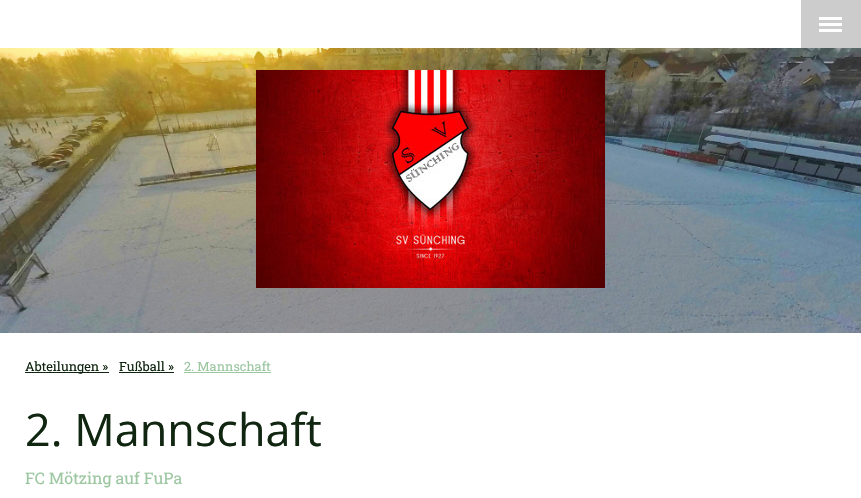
#include "include/core/SkBlurTypes.h"
#include "include/core/SkCanvas.h"
#include "include/core/SkData.h"
#include "include/core/SkFont.h"
#include "include/core/SkFontMgr.h"
#include "include/core/SkImage.h"
#include "include/core/SkMaskFilter.h"
#include "include/core/SkPaint.h"
#include "include/core/SkPathBuilder.h"
#include "include/core/SkTextBlob.h"
#include "include/effects/SkDashPathEffect.h"
#include "include/effects/SkGradientShader.h"
#include "include/utils/SkParsePath.h"

extern sk_sp<SkFontMgr> fontMgr;

void draw(SkCanvas* canvas) {
    SkPaint p;
    p.setAntiAlias(true);
    auto font = [&](const char* family, int weight, float size, bool italic = false) {
        SkFontStyle style(weight, SkFontStyle::kNormal_Width,
            italic ? SkFontStyle::kItalic_Slant : SkFontStyle::kUpright_Slant);
        SkFont result(fontMgr->matchFamilyStyle(family, style), size);
        result.setSubpixel(true);
        return result;
    };
    auto drawPhoto = [&](const char* path, float l, float t, float r, float b) {
        auto image = SkImages::DeferredFromEncodedData(SkData::MakeFromFileName(path));
        canvas->drawImageRect(image, SkRect::MakeLTRB(l, t, r, b), SkSamplingOptions());
    };
    canvas->clear(0xFFFFFFFF);
    drawPhoto("media/1.png", 0, 48, 861, 333);
    {
        const struct { float l, t, r, b; SkColor color; } items[] = {
            {801, 0, 861, 48, 0xFFCCCCCC},
            {819, 23, 842, 26, 0xFFFFFFFF},
            {819, 17, 842, 20, 0xFFFFFFFF},
            {819, 29, 842, 32, 0xFFFFFFFF},
        };
        for (auto [l, t, r, b, color] : items) {
            p.setColor(color);
            canvas->drawRect(SkRect::MakeLTRB(l, t, r, b), p);
        }
    }
    drawPhoto("media/2.png", 256, 70, 605, 288);
    p.setColor(0xFF112611);
    canvas->drawRect(SkRect::MakeLTRB(25, 372, 99, 373), p);
    auto font1 = font("Roboto Slab", 400, 12.75f);
    canvas->drawString("Abteilungen »", 25, 371, font1, p);
    canvas->drawRect(SkRect::MakeLTRB(99, 372, 109, 373), p);
    canvas->drawString("Fußball »", 119, 371, font1, p);
    canvas->drawRect(SkRect::MakeLTRB(119, 372, 174, 373), p);
    p.setColor(0xFF9CC7A1);
    canvas->drawString("2. Mannschaft", 184, 371, font1, p);
    canvas->drawRect(SkRect::MakeLTRB(184, 372, 271, 373), p);
    auto font2 = font("Open Sans", 400, 45);
    p.setColor(0xFF112611);
    canvas->drawString("2. Mannschaft", 25, 446, font2, p);
    auto font3 = font("Roboto Slab", 400, 16);
    p.setColor(0xFF9CC7A1);
    canvas->drawString("FC Mötzing auf FuPa", 25, 484, font3, p);
}
